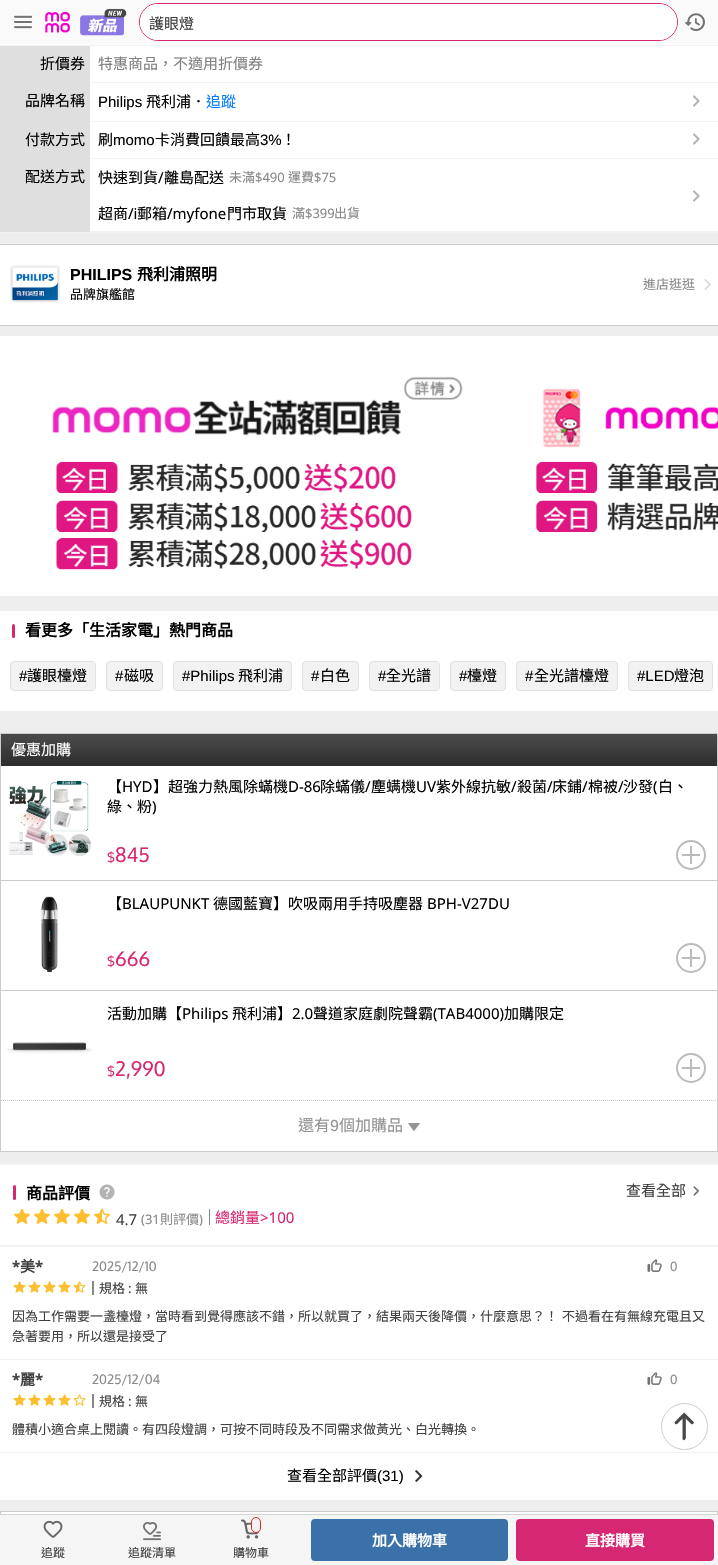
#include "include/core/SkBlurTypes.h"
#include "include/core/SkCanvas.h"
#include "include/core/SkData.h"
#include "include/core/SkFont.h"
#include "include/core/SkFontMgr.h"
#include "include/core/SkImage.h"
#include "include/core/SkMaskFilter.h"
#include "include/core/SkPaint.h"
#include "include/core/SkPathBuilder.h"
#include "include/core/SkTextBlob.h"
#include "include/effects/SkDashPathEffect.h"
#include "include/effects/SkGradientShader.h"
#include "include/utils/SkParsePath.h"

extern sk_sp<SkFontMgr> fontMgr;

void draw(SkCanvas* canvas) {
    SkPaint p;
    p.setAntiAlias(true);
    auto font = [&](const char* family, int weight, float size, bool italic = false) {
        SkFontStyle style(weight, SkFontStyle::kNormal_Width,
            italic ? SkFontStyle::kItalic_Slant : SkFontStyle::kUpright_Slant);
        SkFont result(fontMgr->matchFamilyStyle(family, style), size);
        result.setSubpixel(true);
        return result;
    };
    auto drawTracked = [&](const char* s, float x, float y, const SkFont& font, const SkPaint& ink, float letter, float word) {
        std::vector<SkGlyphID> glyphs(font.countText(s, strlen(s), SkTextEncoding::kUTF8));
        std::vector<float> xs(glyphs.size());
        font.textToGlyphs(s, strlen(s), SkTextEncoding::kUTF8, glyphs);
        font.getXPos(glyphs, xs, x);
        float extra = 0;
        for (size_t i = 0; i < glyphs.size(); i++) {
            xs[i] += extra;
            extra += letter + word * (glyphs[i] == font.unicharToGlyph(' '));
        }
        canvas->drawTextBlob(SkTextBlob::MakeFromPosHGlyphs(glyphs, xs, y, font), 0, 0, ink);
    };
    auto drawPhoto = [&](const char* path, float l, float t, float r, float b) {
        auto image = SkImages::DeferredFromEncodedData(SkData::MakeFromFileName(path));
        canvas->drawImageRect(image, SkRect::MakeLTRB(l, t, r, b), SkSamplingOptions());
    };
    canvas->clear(0xFFEEEEEE);
    p.setColor(0xFFFAFAFA);
    canvas->drawRect(SkRect::MakeLTRB(0, 0, 718, 44), p);
    drawPhoto("media/1.png", 14, 15, 33, 29);
    drawPhoto("media/2.png", 45, 12, 70, 33);
    drawPhoto("media/3.png", 80, 8, 127, 36);
    p.setStyle(SkPaint::kStroke_Style);
    p.setStrokeWidth(1);
    p.setColor(0xFFD62872);
    canvas->drawRoundRect(SkRect::MakeLTRB(139.5f, 3.5f, 677.5f, 40.5f), 18.5f, 18.5f, p);
    p.setStyle(SkPaint::kFill_Style);
    p.setColor(0xFFFFFFFF);
    canvas->drawRoundRect(SkRect::MakeLTRB(140, 4, 677, 40), 18, 18, p);
    canvas->drawRoundRect(SkRect::MakeLTRB(140, 13, 673, 33), 10, 10, p);
    auto font1 = font("Noto Sans CJK TC", 400, 15);
    p.setColor(0xFF404040);
    canvas->drawString("護眼燈", 149, 29, font1, p);
    drawPhoto("media/4.png", 685, 13, 705, 31);
    {
        const struct { float l, t, r, b; SkColor color; } items[] = {
            {0, 44, 718, 231, 0xFFFFFFFF},
            {0, 45, 718, 46, 0xFFF2F2F2},
            {0, 232, 718, 233, 0xFFF2F2F2},
            {0, 46, 90, 232, 0xFFDFDFDF},
        };
        for (auto [l, t, r, b, color] : items) {
            p.setColor(color);
            canvas->drawRect(SkRect::MakeLTRB(l, t, r, b), p);
        }
    }
    p.setColor(0xFF000000);
    canvas->drawString("折價券", 40, 69, font1, p);
    p.setColor(0xFFF2F2F2);
    canvas->drawRect(SkRect::MakeLTRB(90, 82, 718, 83), p);
    p.setColor(0xFF808080);
    canvas->drawString("特惠商品，不適用折價券", 98, 69, font1, p);
    p.setColor(0xFF000000);
    canvas->drawString("品牌名稱", 25, 106, font1, p);
    p.setColor(0xFFF2F2F2);
    canvas->drawRect(SkRect::MakeLTRB(90, 121, 718, 122), p);
    auto font2 = font("Liberation Sans", 400, 15);
    p.setColor(0xFF000000);
    canvas->drawString("Philips", 98, 107, font2, p);
    canvas->drawString("飛利浦．", 146, 107, font1, p);
    p.setColor(0xFF027BFF);
    canvas->drawString("追蹤", 206, 107, font1, p);
    drawPhoto("media/5.png", 693, 95, 700, 107);
    p.setColor(0xFF000000);
    canvas->drawString("付款方式", 25, 145, font1, p);
    p.setColor(0xFFF2F2F2);
    canvas->drawRect(SkRect::MakeLTRB(90, 158, 718, 159), p);
    p.setColor(0xFF000000);
    canvas->drawString("刷", 98, 145, font1, p);
    canvas->drawString("momo", 113, 145, font2, p);
    canvas->drawString("卡消費回饋最高", 155, 145, font1, p);
    canvas->drawString("3%", 260, 145, font2, p);
    canvas->drawString("！", 281, 145, font1, p);
    drawPhoto("media/5.png", 693, 133, 700, 145);
    canvas->drawString("配送方式", 25, 182, font1, p);
    p.setColor(0xFFF2F2F2);
    canvas->drawRect(SkRect::MakeLTRB(90, 231, 718, 232), p);
    p.setColor(0xFF000000);
    canvas->drawString("快速到貨", 98, 183, font1, p);
    auto font3 = font("Noto Sans", 400, 15);
    canvas->drawString("/", 158, 183, font3, p);
    canvas->drawString("離島配送", 164, 183, font1, p);
    auto font4 = font("Noto Sans CJK TC", 400, 13);
    p.setColor(0xFF888888);
    canvas->drawString("未滿", 229, 182, font4, p);
    auto font5 = font("Noto Sans", 400, 13);
    canvas->drawString("$490", 255, 182, font5, p);
    canvas->drawString("運費", 288, 182, font4, p);
    canvas->drawString("$75", 314, 182, font5, p);
    drawPhoto("media/5.png", 693, 190, 700, 202);
    p.setColor(0xFF000000);
    canvas->drawString("超商", 98, 219, font1, p);
    canvas->drawString("/i", 128, 219, font3, p);
    canvas->drawString("郵箱", 137, 219, font1, p);
    canvas->drawString("/myfone", 167, 219, font3, p);
    canvas->drawString("門市取貨", 227, 219, font1, p);
    p.setColor(0xFF888888);
    canvas->drawString("滿", 292, 218, font4, p);
    canvas->drawString("$399", 305, 218, font5, p);
    canvas->drawString("出貨", 334, 218, font4, p);
    {
        const struct { float l, t, r, b; SkColor color; } items[] = {
            {0, 245, 718, 325, 0xFFFFFFFF},
            {0, 244, 718, 245, 0xFFCCCCCC},
            {0, 325, 718, 326, 0xFFCCCCCC},
        };
        for (auto [l, t, r, b, color] : items) {
            p.setColor(color);
            canvas->drawRect(SkRect::MakeLTRB(l, t, r, b), p);
        }
    }
    drawPhoto("media/6.png", 10, 265, 60, 303);
    auto font6 = font("Liberation Sans", 700, 16);
    p.setColor(0xFF000000);
    canvas->drawString("PHILIPS", 70, 280, font6, p);
    auto font7 = font("Noto Sans CJK TC", 700, 16);
    canvas->drawString("飛利浦照明", 137, 280, font7, p);
    canvas->drawString("品牌旗艦館", 70, 299, font4, p);
    drawPhoto("media/7.png", 704, 279, 711, 290);
    p.setColor(0xFF888888);
    canvas->drawString("進店逛逛", 643, 289, font4, p);
    p.setColor(0xFFFFFFFF);
    canvas->drawRect(SkRect::MakeLTRB(0, 336, 718, 596), p);
    drawPhoto("media/8.png", 52, 376, 463, 570);
    drawPhoto("media/9.png", 536, 388, 718, 532);
    canvas->drawRect(SkRect::MakeLTRB(0, 611, 718, 711), p);
    p.setColor(0xFFD62872);
    canvas->drawRoundRect(SkRect::MakeLTRB(12, 624, 15, 638), 1.5f, 1.5f, p);
    p.setColor(0xFF000000);
    canvas->drawString("看更多「生活家電」熱門商品", 25, 636, font7, p);
    p.setColor(0xFFF2F2F2);
    canvas->drawRoundRect(SkRect::MakeLTRB(10.5f, 661.5f, 95.5f, 690.5f), 3.5f, 3.5f, p);
    p.setStyle(SkPaint::kStroke_Style);
    p.setColor(0xFFE1E1E1);
    canvas->drawRoundRect(SkRect::MakeLTRB(10.5f, 661.5f, 95.5f, 690.5f), 3.5f, 3.5f, p);
    p.setStyle(SkPaint::kFill_Style);
    p.setColor(0xFF000000);
    canvas->drawString("#", 19, 681, font2, p);
    canvas->drawString("護眼檯燈", 27, 681, font1, p);
    p.setColor(0xFFF2F2F2);
    canvas->drawRoundRect(SkRect::MakeLTRB(106.5f, 661.5f, 162.5f, 690.5f), 3.5f, 3.5f, p);
    p.setStyle(SkPaint::kStroke_Style);
    p.setColor(0xFFE1E1E1);
    canvas->drawRoundRect(SkRect::MakeLTRB(106.5f, 661.5f, 162.5f, 690.5f), 3.5f, 3.5f, p);
    p.setStyle(SkPaint::kFill_Style);
    p.setColor(0xFF000000);
    canvas->drawString("#", 115, 681, font2, p);
    canvas->drawString("磁吸", 124, 681, font1, p);
    p.setColor(0xFFF2F2F2);
    canvas->drawRoundRect(SkRect::MakeLTRB(173.5f, 661.5f, 291.5f, 690.5f), 3.5f, 3.5f, p);
    p.setStyle(SkPaint::kStroke_Style);
    p.setColor(0xFFE1E1E1);
    canvas->drawRoundRect(SkRect::MakeLTRB(173.5f, 661.5f, 291.5f, 690.5f), 3.5f, 3.5f, p);
    p.setStyle(SkPaint::kFill_Style);
    p.setColor(0xFF000000);
    canvas->drawString("#Philips", 182, 681, font2, p);
    canvas->drawString("飛利浦", 238, 681, font1, p);
    p.setColor(0xFFF2F2F2);
    canvas->drawRoundRect(SkRect::MakeLTRB(302.5f, 661.5f, 358.5f, 690.5f), 3.5f, 3.5f, p);
    p.setStyle(SkPaint::kStroke_Style);
    p.setColor(0xFFE1E1E1);
    canvas->drawRoundRect(SkRect::MakeLTRB(302.5f, 661.5f, 358.5f, 690.5f), 3.5f, 3.5f, p);
    p.setStyle(SkPaint::kFill_Style);
    p.setColor(0xFF000000);
    canvas->drawString("#", 311, 681, font2, p);
    canvas->drawString("白色", 320, 681, font1, p);
    p.setColor(0xFFF2F2F2);
    canvas->drawRoundRect(SkRect::MakeLTRB(369.5f, 661.5f, 439.5f, 690.5f), 3.5f, 3.5f, p);
    p.setStyle(SkPaint::kStroke_Style);
    p.setColor(0xFFE1E1E1);
    canvas->drawRoundRect(SkRect::MakeLTRB(369.5f, 661.5f, 439.5f, 690.5f), 3.5f, 3.5f, p);
    p.setStyle(SkPaint::kFill_Style);
    p.setColor(0xFF000000);
    canvas->drawString("#", 378, 681, font2, p);
    canvas->drawString("全光譜", 386, 681, font1, p);
    p.setColor(0xFFF2F2F2);
    canvas->drawRoundRect(SkRect::MakeLTRB(450.5f, 661.5f, 505.5f, 690.5f), 3.5f, 3.5f, p);
    p.setStyle(SkPaint::kStroke_Style);
    p.setColor(0xFFE1E1E1);
    canvas->drawRoundRect(SkRect::MakeLTRB(450.5f, 661.5f, 505.5f, 690.5f), 3.5f, 3.5f, p);
    p.setStyle(SkPaint::kFill_Style);
    p.setColor(0xFF000000);
    canvas->drawString("#", 459, 681, font2, p);
    canvas->drawString("檯燈", 467, 681, font1, p);
    p.setColor(0xFFF2F2F2);
    canvas->drawRoundRect(SkRect::MakeLTRB(516.5f, 661.5f, 617.5f, 690.5f), 3.5f, 3.5f, p);
    p.setStyle(SkPaint::kStroke_Style);
    p.setColor(0xFFE1E1E1);
    canvas->drawRoundRect(SkRect::MakeLTRB(516.5f, 661.5f, 617.5f, 690.5f), 3.5f, 3.5f, p);
    p.setStyle(SkPaint::kFill_Style);
    p.setColor(0xFF000000);
    canvas->drawString("#", 525, 681, font2, p);
    canvas->drawString("全光譜檯燈", 534, 681, font1, p);
    p.setColor(0xFFF2F2F2);
    canvas->drawRoundRect(SkRect::MakeLTRB(628.5f, 661.5f, 712.5f, 690.5f), 3.5f, 3.5f, p);
    p.setStyle(SkPaint::kStroke_Style);
    p.setColor(0xFFE1E1E1);
    canvas->drawRoundRect(SkRect::MakeLTRB(628.5f, 661.5f, 712.5f, 690.5f), 3.5f, 3.5f, p);
    p.setStyle(SkPaint::kFill_Style);
    p.setColor(0xFF000000);
    canvas->drawString("#LED", 637, 681, font2, p);
    canvas->drawString("燈泡", 674, 681, font1, p);
    p.setColor(0xFFFFFFFF);
    canvas->drawRect(SkRect::MakeLTRB(1, 766, 717, 1151), p);
    p.setStyle(SkPaint::kStroke_Style);
    p.setColor(0xFFCCCCCC);
    canvas->drawRect(SkRect::MakeLTRB(0.5f, 733.5f, 717.5f, 1151.5f), p);
    drawPhoto("media/10.png", 1, 734, 717, 766);
    p.setStyle(SkPaint::kFill_Style);
    p.setColor(0xFFFFFFFF);
    canvas->drawString("優惠加購", 11, 755, font1, p);
    drawPhoto("media/11.png", 9, 780, 91, 856);
    p.setColor(0xFF000000);
    canvas->drawString("【", 107, 792, font1, p);
    canvas->drawString("HYD", 122, 792, font3, p);
    canvas->drawString("】超強力熱風除蟎機", 153, 792, font1, p);
    canvas->drawString("D-86", 288, 792, font3, p);
    canvas->drawString("除蟎儀", 320, 792, font1, p);
    canvas->drawString("/", 365, 792, font3, p);
    canvas->drawString("塵螨機", 371, 792, font1, p);
    canvas->drawString("UV", 416, 792, font3, p);
    canvas->drawString("紫外線抗敏", 436, 792, font1, p);
    canvas->drawString("/", 511, 792, font3, p);
    canvas->drawString("殺菌", 517, 792, font1, p);
    canvas->drawString("/", 547, 792, font3, p);
    canvas->drawString("床鋪", 552, 792, font1, p);
    canvas->drawString("/", 582, 792, font3, p);
    canvas->drawString("棉被", 588, 792, font1, p);
    canvas->drawString("/", 618, 792, font3, p);
    canvas->drawString("沙發", 623, 792, font1, p);
    canvas->drawString("(", 653, 792, font3, p);
    canvas->drawString("白、", 658, 792, font1, p);
    canvas->drawString("綠、粉", 107, 812, font1, p);
    canvas->drawString(")", 152, 812, font3, p);
    auto font8 = font("Oxygen", 400, 13);
    p.setColor(0xFFD62872);
    canvas->drawString("$", 107, 862, font8, p);
    auto font9 = font("Oxygen", 400, 20);
    canvas->drawString("845", 115, 862, font9, p);
    p.setStyle(SkPaint::kStroke_Style);
    p.setStrokeWidth(2);
    p.setColor(0xFFBBBBBB);
    canvas->drawCircle(691, 855, 14, p);
    p.setStyle(SkPaint::kFill_Style);
    {
        const struct { float l, t, r, b; SkColor color; } items[] = {
            {682, 854, 700, 856, 0xFFBBBBBB},
            {690, 846, 692, 864, 0xFFBBBBBB},
            {1, 880, 717, 881, 0xFFCCCCCC},
        };
        for (auto [l, t, r, b, color] : items) {
            p.setColor(color);
            canvas->drawRect(SkRect::MakeLTRB(l, t, r, b), p);
        }
    }
    drawPhoto("media/12.png", 41, 896, 58, 972);
    p.setColor(0xFF000000);
    canvas->drawString("【", 107, 909, font1, p);
    canvas->drawString("BLAUPUNKT", 122, 909, font3, p);
    canvas->drawString("德國藍寶】吹吸兩用手持吸塵器", 213, 909, font1, p);
    canvas->drawString("BPH-V27DU", 427, 909, font3, p);
    p.setColor(0xFFD62872);
    canvas->drawString("$", 107, 966, font8, p);
    canvas->drawString("666", 115, 966, font9, p);
    p.setStyle(SkPaint::kStroke_Style);
    p.setColor(0xFFBBBBBB);
    canvas->drawCircle(691, 958, 14, p);
    p.setStyle(SkPaint::kFill_Style);
    {
        const struct { float l, t, r, b; SkColor color; } items[] = {
            {682, 957, 700, 959, 0xFFBBBBBB},
            {690, 949, 692, 967, 0xFFBBBBBB},
            {1, 990, 717, 991, 0xFFCCCCCC},
        };
        for (auto [l, t, r, b, color] : items) {
            p.setColor(color);
            canvas->drawRect(SkRect::MakeLTRB(l, t, r, b), p);
        }
    }
    drawPhoto("media/13.png", 7, 1042, 92, 1054);
    p.setColor(0xFF000000);
    canvas->drawString("活動加購【", 107, 1019, font1, p);
    canvas->drawString("Philips", 182, 1019, font3, p);
    canvas->drawString("飛利浦】", 232, 1019, font1, p);
    canvas->drawString("2.0", 292, 1019, font3, p);
    canvas->drawString("聲道家庭劇院聲霸", 313, 1019, font1, p);
    canvas->drawString("(TAB4000)", 433, 1019, font3, p);
    canvas->drawString("加購限定", 504, 1019, font1, p);
    p.setColor(0xFFD62872);
    canvas->drawString("$", 107, 1076, font8, p);
    canvas->drawString("2,990", 115, 1076, font9, p);
    p.setStyle(SkPaint::kStroke_Style);
    p.setColor(0xFFBBBBBB);
    canvas->drawCircle(691, 1068, 14, p);
    p.setStyle(SkPaint::kFill_Style);
    canvas->drawRect(SkRect::MakeLTRB(682, 1067, 700, 1069), p);
    canvas->drawRect(SkRect::MakeLTRB(690, 1059, 692, 1077), p);
    p.setStyle(SkPaint::kStroke_Style);
    p.setStrokeWidth(1);
    p.setColor(0xFFCCCCCC);
    p.setPathEffect(SkDashPathEffect::Make({{1, 1}}, 0));
    canvas->drawPath(SkPathBuilder().moveTo(1, 1100.5f).lineTo(717, 1100.5f).detach(), p);
    p.setPathEffect(nullptr);
    auto font10 = font("Noto Sans CJK TC", 400, 16);
    p.setStyle(SkPaint::kFill_Style);
    p.setColor(0xFF939393);
    canvas->drawString("還有", 298, 1131, font10, p);
    auto font11 = font("Liberation Sans", 400, 16);
    canvas->drawString("9", 330, 1131, font11, p);
    canvas->drawString("個加購品", 339, 1131, font10, p);
    drawPhoto("media/14.png", 408, 1123, 420, 1131);
    {
        const struct { float l, t, r, b; SkColor color; } items[] = {
            {0, 1165, 718, 1245, 0xFFFFFFFF},
            {0, 1163, 718, 1165, 0xFFF2F2F2},
            {0, 1245, 718, 1247, 0xFFF2F2F2},
        };
        for (auto [l, t, r, b, color] : items) {
            p.setColor(color);
            canvas->drawRect(SkRect::MakeLTRB(l, t, r, b), p);
        }
    }
    p.setColor(0xFFD62872);
    canvas->drawRoundRect(SkRect::MakeLTRB(13, 1185, 16, 1200), 1.5f, 1.5f, p);
    p.setColor(0xFF000000);
    canvas->drawString("商品評價", 26, 1199, font7, p);
    p.setColor(0xFF404040);
    canvas->drawString("查看全部", 626, 1196, font1, p);
    drawPhoto("media/15.png", 693, 1186, 699, 1196);
    drawPhoto("media/16.png", 14, 1208, 30, 1224);
    drawPhoto("media/16.png", 34, 1208, 50, 1224);
    drawPhoto("media/16.png", 54, 1208, 70, 1224);
    drawPhoto("media/16.png", 74, 1208, 90, 1224);
    drawPhoto("media/17.png", 94, 1208, 110, 1224);
    canvas->drawString("4.7", 116, 1225, font3, p);
    p.setColor(0xFF888888);
    canvas->drawString("(31", 141, 1224, font5, p);
    canvas->drawString("則評價", 160, 1224, font4, p);
    canvas->drawString(")", 199, 1224, font5, p);
    canvas->drawRect(SkRect::MakeLTRB(209, 1209, 210, 1225), p);
    p.setColor(0xFFD62872);
    canvas->drawString("總銷量", 215, 1223, font1, p);
    canvas->drawString(">100", 260, 1223, font3, p);
    drawPhoto("media/18.png", 99, 1184, 115, 1200);
    p.setColor(0xFFFFFFFF);
    canvas->drawRect(SkRect::MakeLTRB(0, 1247, 718, 1359), p);
    auto font12 = font("Noto Sans", 700, 15);
    p.setColor(0xFF404040);
    canvas->drawString("*", 12, 1272, font12, p);
    auto font13 = font("Noto Sans CJK TC", 700, 15);
    canvas->drawString("美", 20, 1272, font13, p);
    canvas->drawString("*", 35, 1272, font12, p);
    p.setColor(0xFF888888);
    canvas->drawString("2025/12/10", 92, 1271, font8, p);
    drawPhoto("media/19.png", 647, 1259, 662, 1272);
    canvas->drawString("0", 670, 1271, font5, p);
    drawPhoto("media/20.png", 13, 1281, 26, 1293);
    drawPhoto("media/20.png", 28, 1281, 41, 1293);
    drawPhoto("media/20.png", 43, 1281, 56, 1293);
    drawPhoto("media/20.png", 58, 1281, 71, 1293);
    drawPhoto("media/21.png", 73, 1281, 86, 1293);
    canvas->drawRect(SkRect::MakeLTRB(92, 1281, 94, 1295), p);
    p.setColor(0xFF404040);
    canvas->drawString("規格", 99, 1293, font4, p);
    canvas->drawString(":", 128, 1293, font5, p);
    canvas->drawString("無", 135, 1293, font4, p);
    drawTracked("因為工作需要一盞檯燈，當時看到覺得應該不錯，所以就買了，結果兩天後降價，什麼意思？！ 不過看在有無線充電且又", 12, 1321, font4, p, 0, 1);
    canvas->drawString("急著要用，所以還是接受了", 12, 1341, font4, p);
    p.setColor(0xFFFFFFFF);
    canvas->drawRect(SkRect::MakeLTRB(0, 1360, 718, 1452), p);
    p.setColor(0xFFF2F2F2);
    canvas->drawRect(SkRect::MakeLTRB(0, 1359, 718, 1360), p);
    p.setColor(0xFF404040);
    canvas->drawString("*", 12, 1385, font12, p);
    canvas->drawString("麗", 20, 1385, font13, p);
    canvas->drawString("*", 35, 1385, font12, p);
    p.setColor(0xFF888888);
    canvas->drawString("2025/12/04", 92, 1384, font8, p);
    drawPhoto("media/19.png", 647, 1372, 662, 1385);
    canvas->drawString("0", 670, 1384, font5, p);
    drawPhoto("media/20.png", 13, 1394, 26, 1406);
    drawPhoto("media/20.png", 28, 1394, 41, 1406);
    drawPhoto("media/20.png", 43, 1394, 56, 1406);
    drawPhoto("media/20.png", 58, 1394, 71, 1406);
    drawPhoto("media/22.png", 73, 1394, 86, 1406);
    canvas->drawRect(SkRect::MakeLTRB(92, 1394, 94, 1408), p);
    p.setColor(0xFF404040);
    canvas->drawString("規格", 99, 1406, font4, p);
    canvas->drawString(":", 128, 1406, font5, p);
    canvas->drawString("無", 135, 1406, font4, p);
    canvas->drawString("體積小適合桌上閱讀。有四段燈調，可按不同時段及不同需求做黃光、白光轉換。", 12, 1434, font4, p);
    drawPhoto("media/23.png", 674, 1412, 694, 1441);
    p.setStyle(SkPaint::kStroke_Style);
    p.setColor(0xFFCCCCCC);
    canvas->drawCircle(684.5f, 1426.5f, 23, p);
    p.setStyle(SkPaint::kFill_Style);
    p.setColor(0xFFFFFFFF);
    canvas->drawRect(SkRect::MakeLTRB(0, 1453, 718, 1500), p);
    p.setColor(0xFFF2F2F2);
    canvas->drawRect(SkRect::MakeLTRB(0, 1452, 718, 1453), p);
    p.setColor(0xFF000000);
    canvas->drawString("查看全部評價", 287, 1481, font1, p);
    canvas->drawString("(31)", 377, 1481, font2, p);
    drawPhoto("media/24.png", 415, 1470, 423, 1482);
    p.setColor(0xFFFFFFFF);
    canvas->drawRect(SkRect::MakeLTRB(1, 1512, 717, 1514), p);
    p.setStyle(SkPaint::kStroke_Style);
    p.setColor(0xFFCCCCCC);
    canvas->drawRect(SkRect::MakeLTRB(0.5f, 1511.5f, 717.5f, 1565.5f), p);
    p.setStyle(SkPaint::kFill_Style);
    p.setColor(0xFFF5F5F5);
    canvas->drawRect(SkRect::MakeLTRB(0, 1515, 718, 1565), p);
    p.setColor(0xFFD4D4D4);
    canvas->drawRect(SkRect::MakeLTRB(0, 1514, 718, 1515), p);
    p.setColor(0xFF3A71A9);
    canvas->drawRoundRect(SkRect::MakeLTRB(311, 1519, 508, 1561), 4, 4, p);
    p.setColor(0xFFFFFFFF);
    canvas->drawString("加入購物車", 372, 1546, font13, p);
    p.setColor(0xFFD62872);
    canvas->drawRoundRect(SkRect::MakeLTRB(516, 1519, 714, 1561), 4, 4, p);
    p.setColor(0xFFFFFFFF);
    canvas->drawString("直接購買", 585, 1546, font13, p);
    drawPhoto("media/25.png", 43, 1520, 63, 1538);
    auto font14 = font("Noto Sans CJK TC", 400, 12);
    p.setColor(0xFF404040);
    canvas->drawString("追蹤", 41, 1557, font14, p);
    drawPhoto("media/26.png", 143, 1522, 161, 1541);
    canvas->drawString("追蹤清單", 128, 1557, font14, p);
    drawPhoto("media/27.png", 241, 1519, 261, 1539);
    p.setColor(0xFFF2F2F2);
    canvas->drawRoundRect(SkRect::MakeLTRB(251.5f, 1517.5f, 260.5f, 1532.5f), 4.5f, 4.5f, p);
    p.setStyle(SkPaint::kStroke_Style);
    p.setColor(0xFFDD2726);
    canvas->drawRoundRect(SkRect::MakeLTRB(251.5f, 1517.5f, 260.5f, 1532.5f), 4.5f, 4.5f, p);
    p.setStyle(SkPaint::kFill_Style);
    p.setColor(0xFF404040);
    canvas->drawString("購物車", 233, 1557, font14, p);
}
